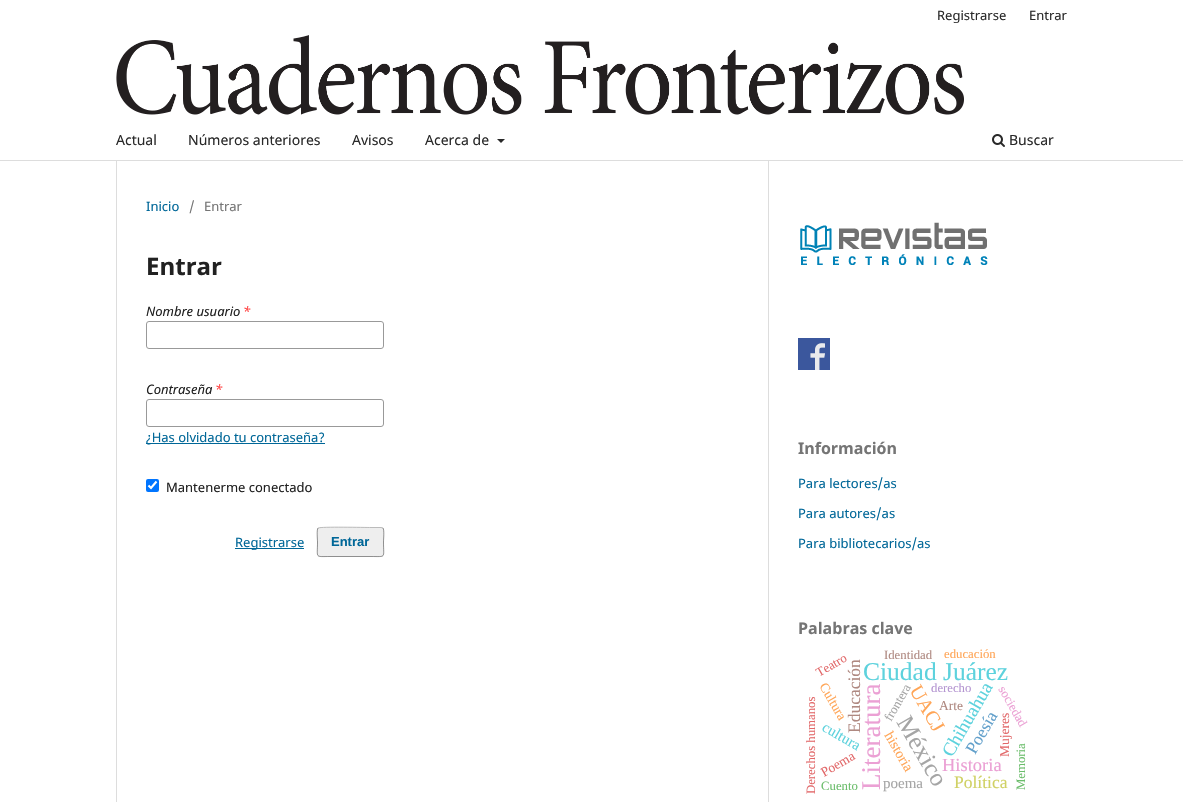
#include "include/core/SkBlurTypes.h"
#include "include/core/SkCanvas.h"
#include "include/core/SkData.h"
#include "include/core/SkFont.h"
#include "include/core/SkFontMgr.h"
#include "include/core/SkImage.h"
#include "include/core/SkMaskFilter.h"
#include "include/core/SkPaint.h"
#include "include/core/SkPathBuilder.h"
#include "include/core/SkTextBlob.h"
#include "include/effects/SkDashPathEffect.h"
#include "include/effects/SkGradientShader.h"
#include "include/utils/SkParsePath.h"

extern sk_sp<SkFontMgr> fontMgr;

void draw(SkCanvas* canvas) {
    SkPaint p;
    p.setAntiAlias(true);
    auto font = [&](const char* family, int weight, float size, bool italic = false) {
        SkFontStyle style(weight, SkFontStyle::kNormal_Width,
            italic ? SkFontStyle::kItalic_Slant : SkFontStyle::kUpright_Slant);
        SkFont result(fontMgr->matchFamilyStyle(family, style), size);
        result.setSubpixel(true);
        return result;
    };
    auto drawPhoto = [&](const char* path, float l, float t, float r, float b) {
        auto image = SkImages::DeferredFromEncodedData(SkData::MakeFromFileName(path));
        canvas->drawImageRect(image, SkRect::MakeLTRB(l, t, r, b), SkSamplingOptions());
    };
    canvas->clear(0xFFFFFFFF);
    p.setColor(0xFFDDDDDD);
    canvas->drawRect(SkRect::MakeLTRB(0, 160, 1183, 161), p);
    auto font1 = font("Noto Sans", 400, 13);
    p.setColor(0xFF292929);
    canvas->drawString("Registrarse", 937, 20, font1, p);
    canvas->drawString("Entrar", 1029, 20, font1, p);
    auto font2 = font("Noto Sans", 400, 14);
    {
        const struct { const char* s; float x, y; } items[] = {
            {"Actual", 116, 145},
            {"Números anteriores", 188, 145},
            {"Avisos", 352, 145},
            {"Acerca de", 425, 145},
        };
        for (auto [s, x, y] : items) {
            canvas->drawString(s, x, y, font2, p);
        }
    }
    canvas->drawPath(SkPathBuilder().moveTo(497, 139).lineTo(505, 139).lineTo(501, 143).close().detach(), p);
    drawPhoto("media/1.png", 992, 134, 1005, 147);
    canvas->drawString("Buscar", 1009, 145, font2, p);
    drawPhoto("media/2.png", 116, 35, 964, 115);
    p.setColor(0xFFDDDDDD);
    canvas->drawRect(SkRect::MakeLTRB(116, 161, 117, 802), p);
    p.setColor(0xFF006798);
    canvas->drawString("Inicio", 146, 211, font1, p);
    p.setColor(0xFF757575);
    canvas->drawString("/", 189, 211, font1, p);
    canvas->drawString("Entrar", 204, 211, font1, p);
    auto font3 = font("Noto Sans", 700, 24);
    p.setColor(0xFF212121);
    canvas->drawString("Entrar", 146, 275, font3, p);
    auto font4 = font("Noto Sans", 400, 13, true);
    canvas->drawString("Nombre usuario", 146, 316, font4, p);
    p.setColor(0xFFFF4040);
    canvas->drawString("*", 243, 316, font4, p);
    p.setStyle(SkPaint::kStroke_Style);
    p.setStrokeWidth(1);
    p.setColor(0xFF999999);
    canvas->drawRoundRect(SkRect::MakeLTRB(146.5f, 321.5f, 383.5f, 348.5f), 2.5f, 2.5f, p);
    p.setStyle(SkPaint::kFill_Style);
    p.setColor(0xFF212121);
    canvas->drawString("Contraseña", 146, 394, font4, p);
    p.setColor(0xFFFF4040);
    canvas->drawString("*", 215, 394, font4, p);
    p.setStyle(SkPaint::kStroke_Style);
    p.setColor(0xFF999999);
    canvas->drawRoundRect(SkRect::MakeLTRB(146.5f, 399.5f, 383.5f, 426.5f), 2.5f, 2.5f, p);
    p.setStyle(SkPaint::kFill_Style);
    p.setColor(0xFF006798);
    canvas->drawRect(SkRect::MakeLTRB(146, 443, 325, 444), p);
    canvas->drawString("¿Has olvidado tu contraseña?", 146, 442, font1, p);
    p.setColor(0xFF0075FF);
    canvas->drawRoundRect(SkRect::MakeLTRB(146, 479, 159, 492), 2, 2, p);
    p.setStyle(SkPaint::kStroke_Style);
    p.setStrokeWidth(2.1f);
    p.setColor(0xFFFFFFFF);
    canvas->drawPath(SkPathBuilder().moveTo(148.5f, 485.5f).lineTo(151, 488).lineTo(156.5f, 481.5f).detach(), p);
    p.setStyle(SkPaint::kFill_Style);
    p.setColor(0xFF212121);
    canvas->drawString("Mantenerme conectado", 166, 492, font1, p);
    p.setColor(0xFF006798);
    canvas->drawRect(SkRect::MakeLTRB(235, 548, 304, 549), p);
    canvas->drawString("Registrarse", 235, 547, font1, p);
    p.setColor(0xFFEEEEEE);
    canvas->drawRoundRect(SkRect::MakeLTRB(317, 527, 384, 557), 3, 3, p);
    p.setStyle(SkPaint::kStroke_Style);
    p.setStrokeWidth(1);
    p.setColor(0xFFBBBBBB);
    canvas->drawPath(SkPathBuilder().moveTo(318, 528).lineTo(318.5f, 528).cubicTo(320.5f, 526.5f, 365, 527.5f, 371, 527.5f).lineTo(381, 527.5f).lineTo(383, 528).detach(), p);
    p.setColor(0x66000000);
    canvas->drawPath(SkPathBuilder().moveTo(383, 528).cubicTo(384.5f, 530, 383.5f, 539.5f, 383.5f, 542).cubicTo(383.5f, 558.5f, 386.5f, 556.5f, 371, 556.5f).lineTo(330, 556.5f).cubicTo(314.5f, 556.5f, 317.5f, 558.5f, 317.5f, 542).cubicTo(317.5f, 539.5f, 316.5f, 530, 318, 528).detach(), p);
    auto font5 = font("Liberation Sans", 700, 13);
    p.setStyle(SkPaint::kFill_Style);
    p.setColor(0xFF006798);
    canvas->drawString("Entrar", 331, 546, font5, p);
    p.setColor(0xFFDDDDDD);
    canvas->drawRect(SkRect::MakeLTRB(768, 161, 769, 802), p);
    drawPhoto("media/3.png", 800, 222, 988, 265);
    drawPhoto("media/4.png", 798, 338, 830, 370);
    auto font6 = font("Noto Sans", 700, 16);
    p.setColor(0xFF757575);
    canvas->drawString("Información", 798, 454, font6, p);
    p.setColor(0xFF006798);
    {
        const struct { const char* s; float x, y; } items[] = {
            {"Para lectores/as", 798, 488},
            {"Para autores/as", 798, 518},
            {"Para bibliotecarios/as", 798, 548},
        };
        for (auto [s, x, y] : items) {
            canvas->drawString(s, x, y, font1, p);
        }
    }
    p.setColor(0xFF757575);
    canvas->drawString("Palabras clave", 798, 634, font6, p);
    auto font7 = font("Liberation Serif", 400, 12.75f);
    p.setColor(0xFFAF8981);
    canvas->drawString("Identidad", 884, 659, font7, p);
    p.setColor(0xFFFFA556);
    canvas->drawString("educación", 944, 658, font7, p);
    p.setColor(0xFFE26869);
    canvas->save();
    canvas->rotate(-30, 819, 677);
    canvas->drawString("Teatro", 819, 677, font7, p);
    canvas->restore();
    auto font8 = font("Liberation Serif", 400, 17.5f);
    p.setColor(0xFFAF8981);
    canvas->save();
    canvas->rotate(-90, 860, 733);
    canvas->drawString("Educación", 860, 733, font8, p);
    canvas->restore();
    auto font9 = font("Liberation Serif", 400, 25.5f);
    p.setColor(0xFF5DD2DD);
    canvas->drawString("Ciudad Juárez", 863, 680, font9, p);
    auto font10 = font("Liberation Serif", 400, 13.5f);
    p.setColor(0xFFFFA556);
    canvas->save();
    canvas->rotate(60, 819, 686);
    canvas->drawString("Cultura", 819, 686, font10, p);
    canvas->restore();
    auto font11 = font("Liberation Serif", 400, 27);
    p.setColor(0xFFEBA0D4);
    canvas->save();
    canvas->rotate(-90, 880, 790);
    canvas->drawString("Literatura", 880, 790, font11, p);
    canvas->restore();
    auto font12 = font("Liberation Serif", 400, 20);
    p.setColor(0xFFFFA556);
    canvas->save();
    canvas->rotate(60, 909, 690);
    canvas->drawString("UACJ", 909, 690, font12, p);
    canvas->restore();
    auto font13 = font("Liberation Serif", 400, 19);
    p.setColor(0xFF5DD2DD);
    canvas->save();
    canvas->rotate(-60, 952, 758);
    canvas->drawString("Chihuahua", 952, 758, font13, p);
    canvas->restore();
    p.setColor(0xFFB495D1);
    canvas->drawString("derecho", 931, 692, font7, p);
    p.setColor(0xFFE26869);
    canvas->save();
    canvas->rotate(-90, 815, 794);
    canvas->drawString("Derechos humanos", 815, 794, font7, p);
    canvas->restore();
    p.setColor(0xFFA5A5A5);
    canvas->save();
    canvas->rotate(-60, 891, 722);
    canvas->drawString("frontera", 891, 722, font7, p);
    canvas->restore();
    p.setColor(0xFFEBA0D4);
    canvas->save();
    canvas->rotate(60, 998, 689);
    canvas->drawString("sociedad", 998, 689, font7, p);
    canvas->restore();
    p.setColor(0xFFAF8981);
    canvas->drawString("Arte", 939, 710, font10, p);
    auto font14 = font("Liberation Serif", 400, 15);
    p.setColor(0xFF5DD2DD);
    canvas->save();
    canvas->rotate(30, 821, 730);
    canvas->drawString("cultura", 821, 730, font14, p);
    canvas->restore();
    auto font15 = font("Liberation Serif", 400, 25);
    p.setColor(0xFFA5A5A5);
    canvas->save();
    canvas->rotate(60, 896, 722);
    canvas->drawString("México", 896, 722, font15, p);
    canvas->restore();
    p.setColor(0xFF62A0CB);
    canvas->save();
    canvas->rotate(-60, 975, 755);
    canvas->drawString("Poesía", 975, 755, font8, p);
    canvas->restore();
    p.setColor(0xFFE26869);
    canvas->save();
    canvas->rotate(-90, 1009, 757);
    canvas->drawString("Mujeres", 1009, 757, font10, p);
    canvas->restore();
    canvas->save();
    canvas->rotate(-30, 824, 777);
    canvas->drawString("Poema", 824, 777, font10, p);
    canvas->restore();
    auto font16 = font("Liberation Serif", 400, 14.5f);
    p.setColor(0xFFFFA556);
    canvas->save();
    canvas->rotate(60, 884, 735);
    canvas->drawString("historia", 884, 735, font16, p);
    canvas->restore();
    auto font17 = font("Liberation Serif", 400, 18.5f);
    p.setColor(0xFFEBA0D4);
    canvas->drawString("Historia", 942, 771, font17, p);
    p.setColor(0xFF6BBD6B);
    canvas->save();
    canvas->rotate(-90, 1025, 790);
    canvas->drawString("Memoria", 1025, 790, font7, p);
    canvas->restore();
    canvas->drawString("Cuento", 821, 790, font7, p);
    p.setColor(0xFFA5A5A5);
    canvas->drawString("poema", 883, 788, font14, p);
    p.setColor(0xFFD0D164);
    canvas->drawString("Política", 954, 788, font8, p);
}
